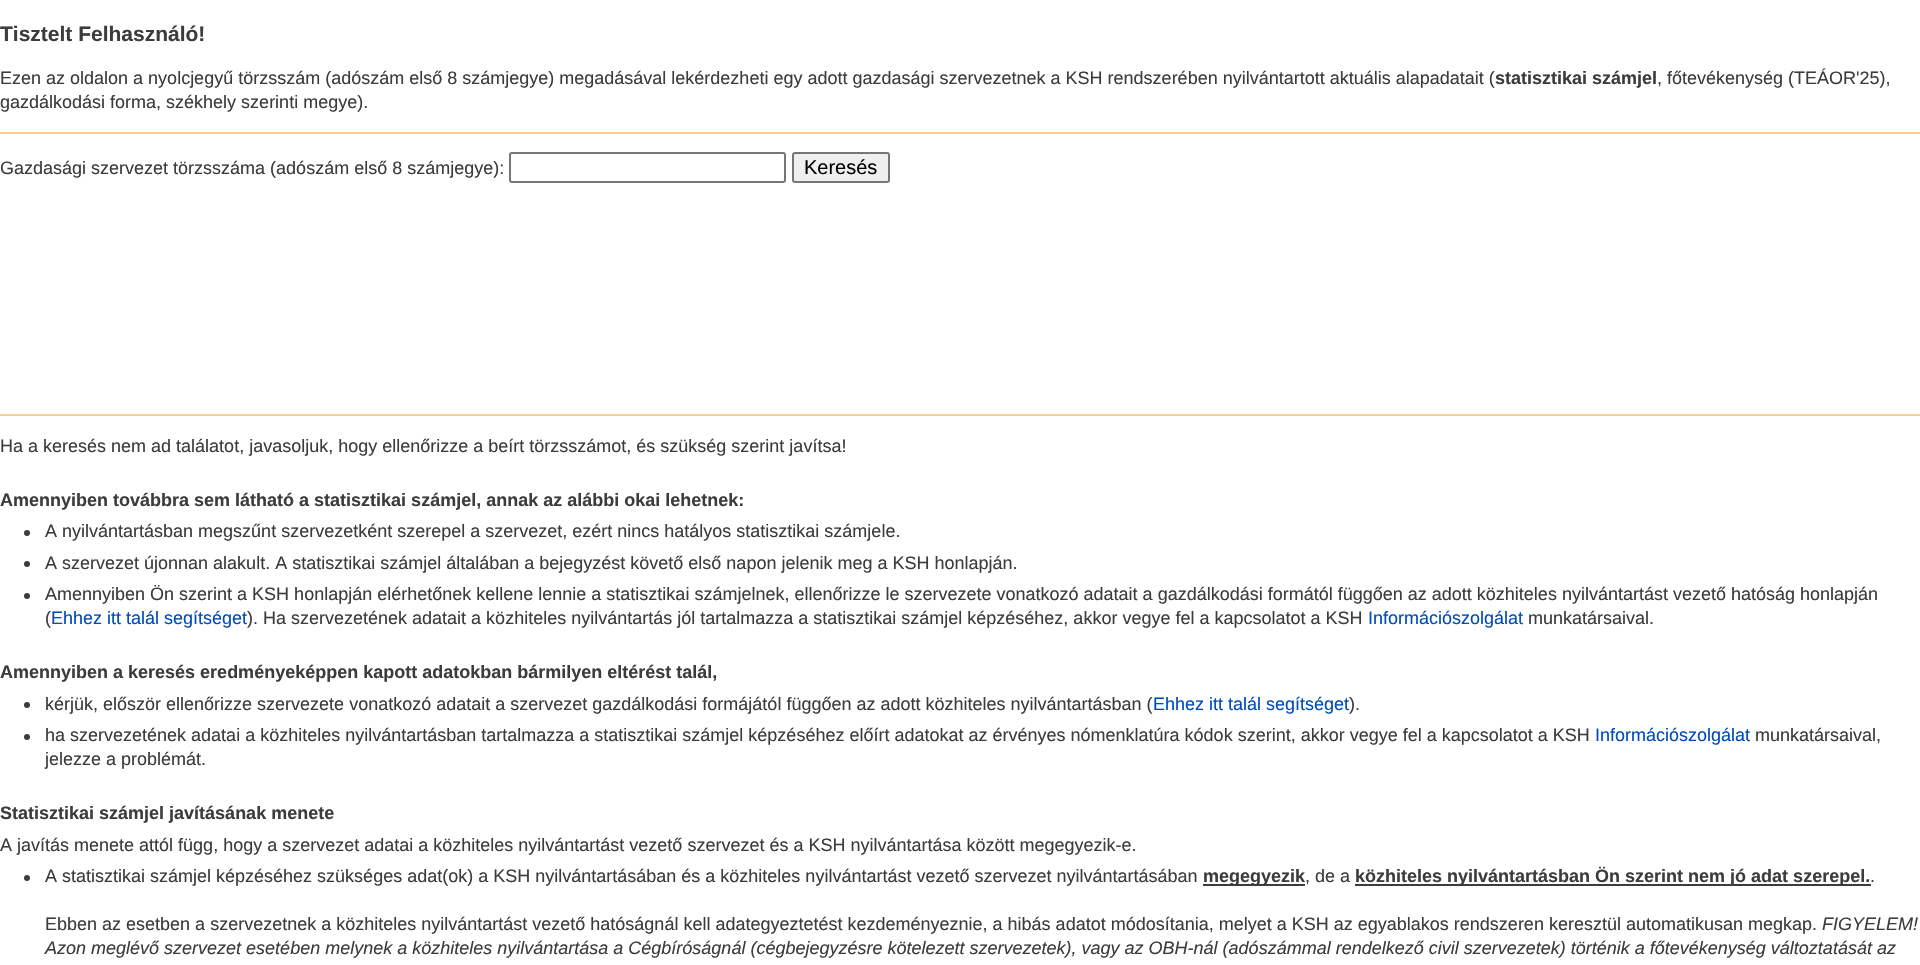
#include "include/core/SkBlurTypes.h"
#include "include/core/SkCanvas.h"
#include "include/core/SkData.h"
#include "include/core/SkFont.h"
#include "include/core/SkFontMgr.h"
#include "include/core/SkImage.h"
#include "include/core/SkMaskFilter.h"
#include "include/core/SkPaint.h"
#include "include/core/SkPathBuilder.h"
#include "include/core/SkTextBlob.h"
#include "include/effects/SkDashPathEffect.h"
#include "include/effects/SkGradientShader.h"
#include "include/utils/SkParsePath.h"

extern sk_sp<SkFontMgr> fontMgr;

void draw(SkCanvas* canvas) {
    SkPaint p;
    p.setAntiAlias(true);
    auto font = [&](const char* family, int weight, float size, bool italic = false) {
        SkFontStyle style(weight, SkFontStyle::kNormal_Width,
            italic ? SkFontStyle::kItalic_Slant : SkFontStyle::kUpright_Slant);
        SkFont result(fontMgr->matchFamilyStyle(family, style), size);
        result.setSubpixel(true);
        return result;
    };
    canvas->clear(0xFFFFFFFF);
    auto font1 = font("Liberation Sans", 700, 21);
    p.setColor(0xFF3C3C3C);
    canvas->drawString("Tisztelt Felhasználó!", 0, 41, font1, p);
    auto font2 = font("Liberation Sans", 400, 18);
    canvas->drawString("Ezen az oldalon a nyolcjegyű törzsszám (adószám első 8 számjegye) megadásával lekérdezheti egy adott gazdasági szervezetnek a KSH rendszerében nyilvántartott aktuális alapadatait (", 0, 84, font2, p);
    auto font3 = font("Liberation Sans", 700, 18);
    canvas->drawString("statisztikai számjel", 1495, 84, font3, p);
    canvas->drawString(", főtevékenység (TEÁOR'25),", 1657, 84, font2, p);
    canvas->drawString("gazdálkodási forma, székhely szerinti megye).", 0, 108, font2, p);
    p.setColor(0xFFFFCE8F);
    canvas->drawRect(SkRect::MakeLTRB(0, 132, 1920, 134), p);
    p.setColor(0xFF3C3C3C);
    canvas->drawString("Gazdasági szervezet törzsszáma (adószám első 8 számjegye):", 0, 174, font2, p);
    p.setStyle(SkPaint::kStroke_Style);
    p.setStrokeWidth(2);
    p.setColor(0xFF767676);
    canvas->drawRoundRect(SkRect::MakeLTRB(510, 153, 785, 182), 2, 2, p);
    p.setStyle(SkPaint::kFill_Style);
    p.setColor(0xFFEFEFEF);
    canvas->drawRoundRect(SkRect::MakeLTRB(793, 153, 889, 182), 2, 2, p);
    p.setStyle(SkPaint::kStroke_Style);
    p.setColor(0xFF767676);
    canvas->drawRoundRect(SkRect::MakeLTRB(793, 153, 889, 182), 2, 2, p);
    auto font4 = font("Liberation Sans", 400, 20);
    p.setStyle(SkPaint::kFill_Style);
    p.setColor(0xFF000000);
    canvas->drawString("Keresés", 804, 174, font4, p);
    p.setColor(0xFFFFCE8F);
    canvas->drawRect(SkRect::MakeLTRB(0, 414, 1920, 416), p);
    p.setColor(0xFF3C3C3C);
    canvas->drawString("Ha a keresés nem ad találatot, javasoljuk, hogy ellenőrizze a beírt törzsszámot, és szükség szerint javítsa!", 0, 452, font2, p);
    canvas->drawString("Amennyiben továbbra sem látható a statisztikai számjel, annak az alábbi okai lehetnek:", 0, 506, font3, p);
    canvas->drawCircle(27, 533, 3, p);
    canvas->drawString("A nyilvántartásban megszűnt szervezetként szerepel a szervezet, ezért nincs hatályos statisztikai számjele.", 45, 537, font2, p);
    canvas->drawCircle(27, 564, 3, p);
    canvas->drawString("A szervezet újonnan alakult. A statisztikai számjel általában a bejegyzést követő első napon jelenik meg a KSH honlapján.", 45, 569, font2, p);
    canvas->drawCircle(27, 596, 3, p);
    canvas->drawString("Amennyiben Ön szerint a KSH honlapján elérhetőnek kellene lennie a statisztikai számjelnek, ellenőrizze le szervezete vonatkozó adatait a gazdálkodási formától függően az adott közhiteles nyilvántartást vezető hatóság honlapján", 45, 600, font2, p);
    canvas->drawString("(", 45, 624, font2, p);
    p.setColor(0xFF004CB8);
    canvas->drawString("Ehhez itt talál segítséget", 51, 624, font2, p);
    p.setColor(0xFF3C3C3C);
    canvas->drawString("). Ha szervezetének adatait a közhiteles nyilvántartás jól tartalmazza a statisztikai számjel képzéséhez, akkor vegye fel a kapcsolatot a KSH", 247, 624, font2, p);
    p.setColor(0xFF004CB8);
    canvas->drawString("Információszolgálat", 1368, 624, font2, p);
    p.setColor(0xFF3C3C3C);
    canvas->drawString("munkatársaival.", 1528, 624, font2, p);
    canvas->drawString("Amennyiben a keresés eredményeképpen kapott adatokban bármilyen eltérést talál,", 0, 678, font3, p);
    canvas->drawCircle(27, 705, 3, p);
    canvas->drawString("kérjük, először ellenőrizze szervezete vonatkozó adatait a szervezet gazdálkodási formájától függően az adott közhiteles nyilvántartásban (", 45, 710, font2, p);
    p.setColor(0xFF004CB8);
    canvas->drawString("Ehhez itt talál segítséget", 1153, 710, font2, p);
    p.setColor(0xFF3C3C3C);
    canvas->drawString(").", 1349, 710, font2, p);
    canvas->drawCircle(27, 737, 3, p);
    canvas->drawString("ha szervezetének adatai a közhiteles nyilvántartásban tartalmazza a statisztikai számjel képzéséhez előírt adatokat az érvényes nómenklatúra kódok szerint, akkor vegye fel a kapcsolatot a KSH", 45, 741, font2, p);
    p.setColor(0xFF004CB8);
    canvas->drawString("Információszolgálat", 1595, 741, font2, p);
    p.setColor(0xFF3C3C3C);
    canvas->drawString("munkatársaival,", 1755, 741, font2, p);
    canvas->drawString("jelezze a problémát.", 45, 765, font2, p);
    canvas->drawString("Statisztikai számjel javításának menete", 0, 819, font3, p);
    canvas->drawString("A javítás menete attól függ, hogy a szervezet adatai a közhiteles nyilvántartást vezető szervezet és a KSH nyilvántartása között megegyezik-e.", 0, 851, font2, p);
    canvas->drawCircle(27, 878, 3, p);
    canvas->drawString("A statisztikai számjel képzéséhez szükséges adat(ok) a KSH nyilvántartásában és a közhiteles nyilvántartást vezető szervezet nyilvántartásában", 45, 882, font2, p);
    canvas->drawRect(SkRect::MakeLTRB(1203, 884, 1305, 886), p);
    canvas->drawString("megegyezik", 1203, 882, font3, p);
    canvas->drawString(", de a", 1305, 882, font2, p);
    canvas->drawRect(SkRect::MakeLTRB(1355, 884, 1871, 886), p);
    canvas->drawString("közhiteles nyilvántartásban Ön szerint nem jó adat szerepel.", 1355, 882, font3, p);
    canvas->drawString(".", 1870, 882, font2, p);
    canvas->drawString("Ebben az esetben a szervezetnek a közhiteles nyilvántartást vezető hatóságnál kell adategyeztetést kezdeményeznie, a hibás adatot módosítania, melyet a KSH az egyablakos rendszeren keresztül automatikusan megkap.", 45, 930, font2, p);
    auto font5 = font("Liberation Sans", 400, 18, true);
    canvas->drawString("FIGYELEM!", 1822, 930, font5, p);
    canvas->drawString("Azon meglévő szervezet esetében melynek a közhiteles nyilvántartása a Cégbíróságnál (cégbejegyzésre kötelezett szervezetek), vagy az OBH-nál (adószámmal rendelkező civil szervezetek) történik a főtevékenység változtatását az", 45, 954, font5, p);
}
